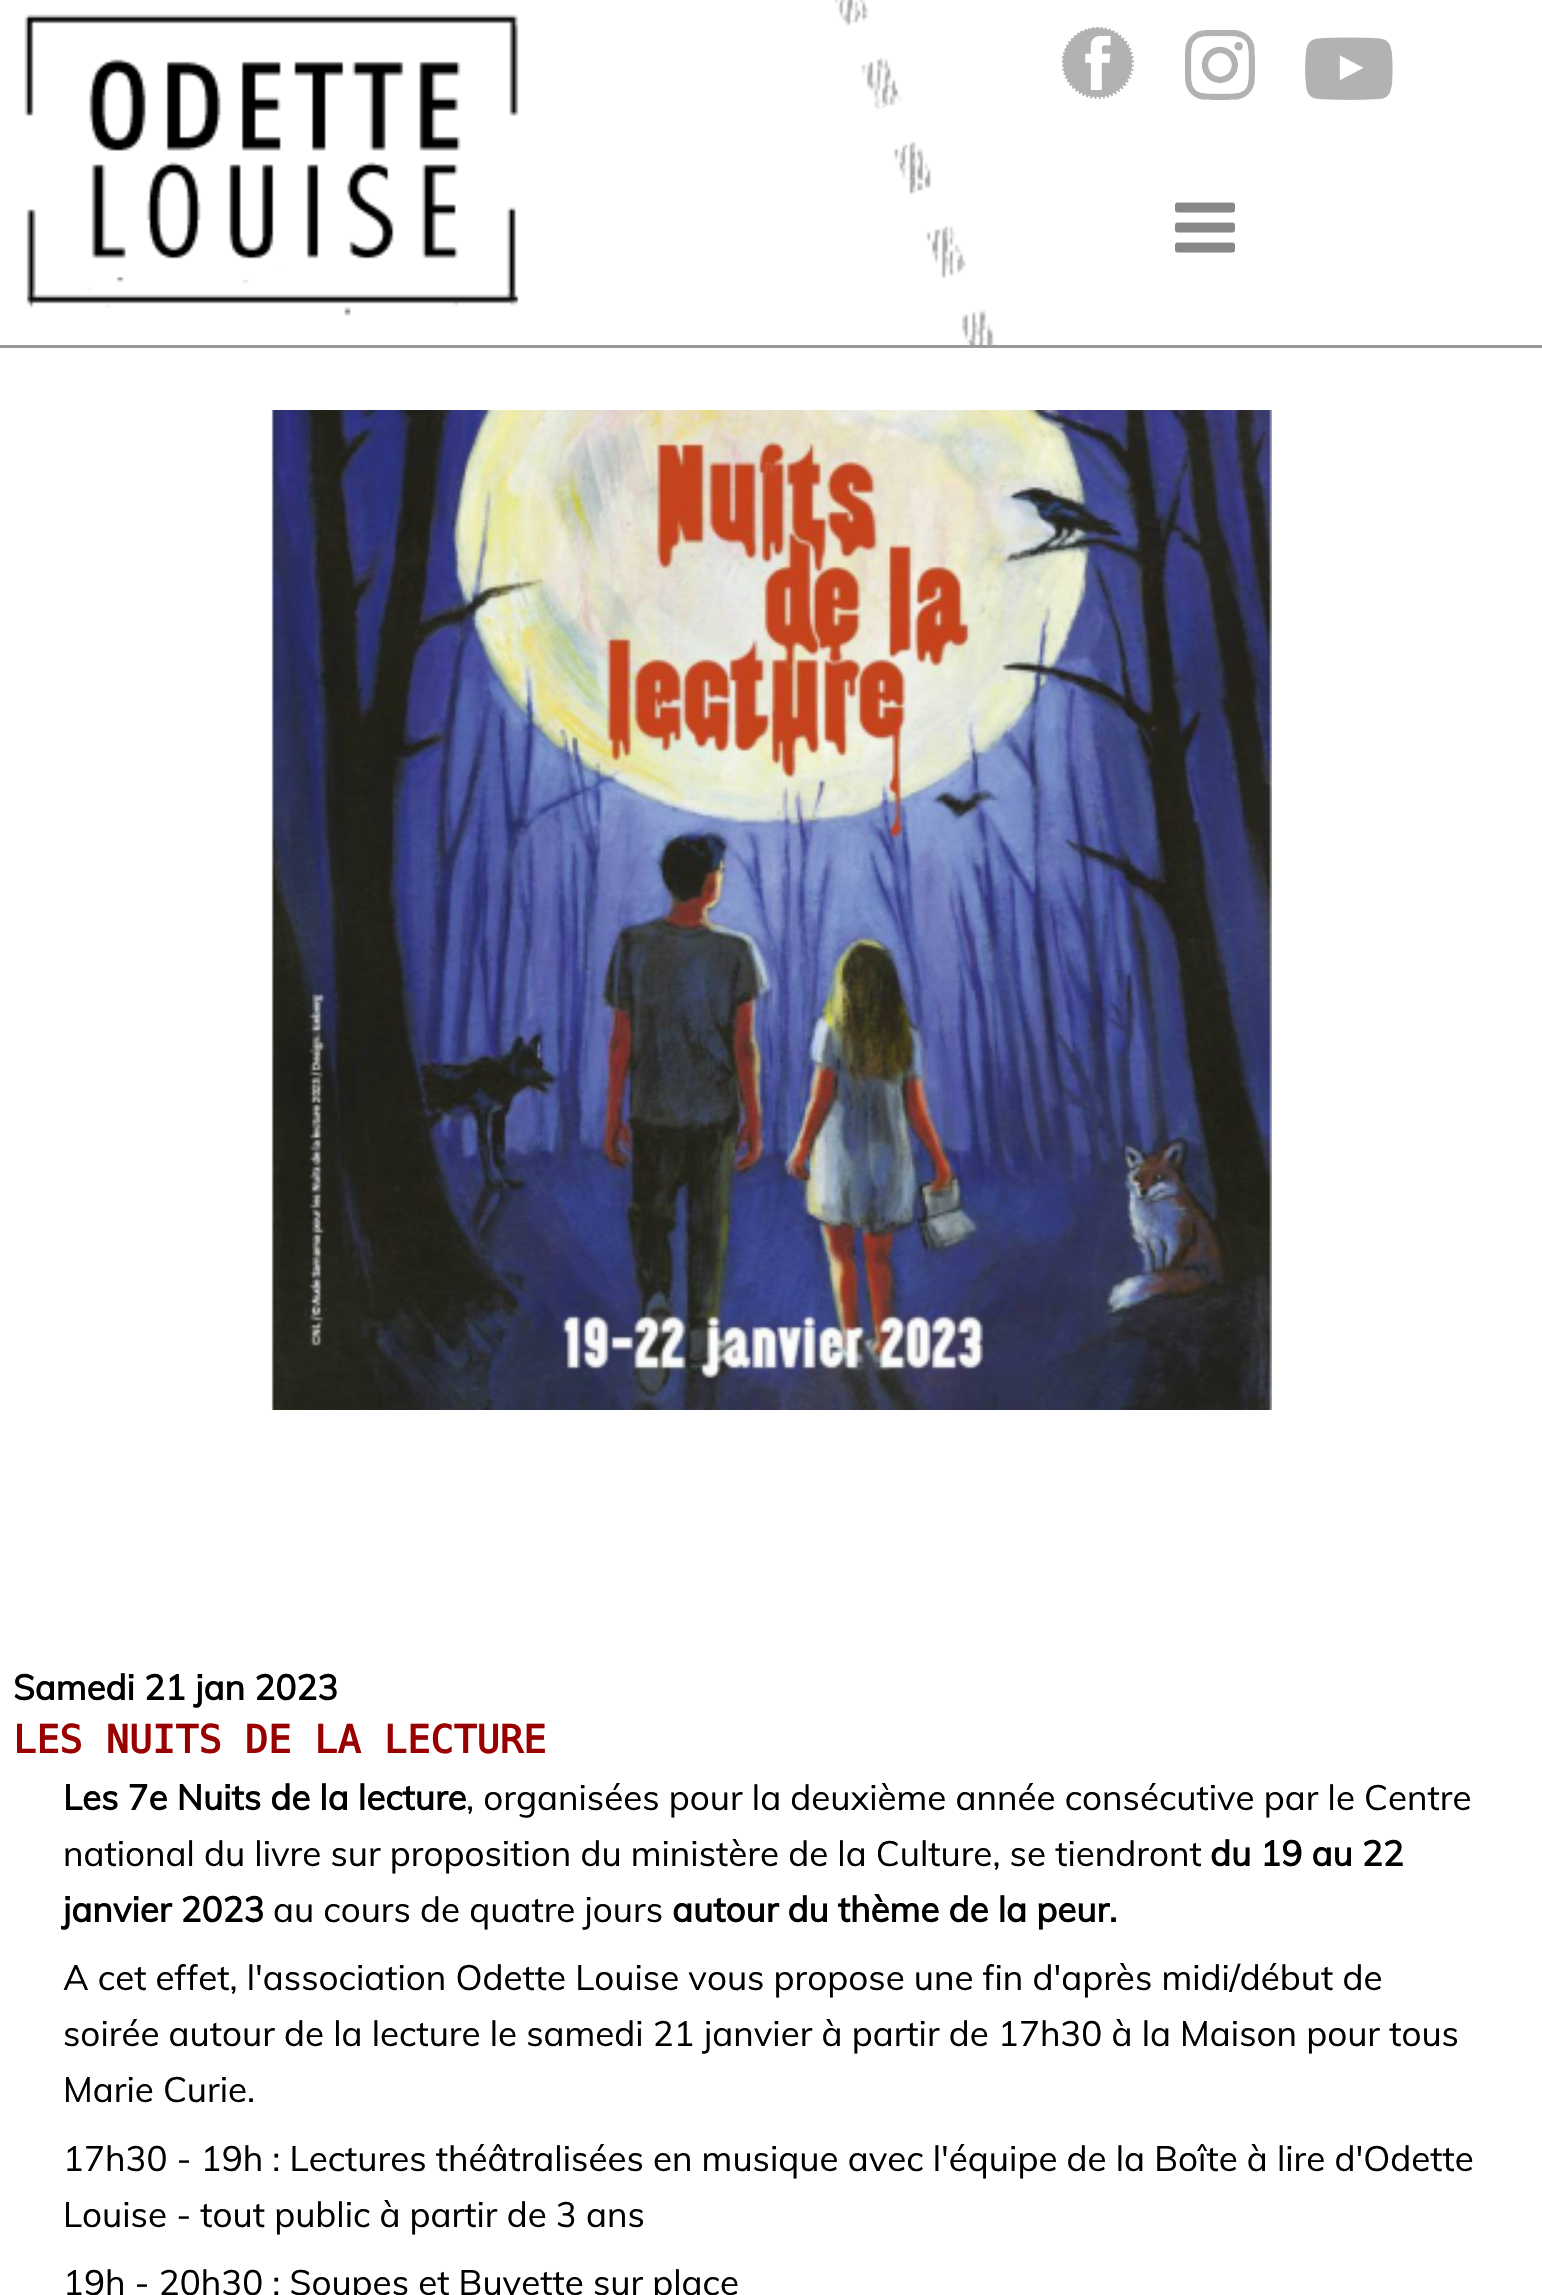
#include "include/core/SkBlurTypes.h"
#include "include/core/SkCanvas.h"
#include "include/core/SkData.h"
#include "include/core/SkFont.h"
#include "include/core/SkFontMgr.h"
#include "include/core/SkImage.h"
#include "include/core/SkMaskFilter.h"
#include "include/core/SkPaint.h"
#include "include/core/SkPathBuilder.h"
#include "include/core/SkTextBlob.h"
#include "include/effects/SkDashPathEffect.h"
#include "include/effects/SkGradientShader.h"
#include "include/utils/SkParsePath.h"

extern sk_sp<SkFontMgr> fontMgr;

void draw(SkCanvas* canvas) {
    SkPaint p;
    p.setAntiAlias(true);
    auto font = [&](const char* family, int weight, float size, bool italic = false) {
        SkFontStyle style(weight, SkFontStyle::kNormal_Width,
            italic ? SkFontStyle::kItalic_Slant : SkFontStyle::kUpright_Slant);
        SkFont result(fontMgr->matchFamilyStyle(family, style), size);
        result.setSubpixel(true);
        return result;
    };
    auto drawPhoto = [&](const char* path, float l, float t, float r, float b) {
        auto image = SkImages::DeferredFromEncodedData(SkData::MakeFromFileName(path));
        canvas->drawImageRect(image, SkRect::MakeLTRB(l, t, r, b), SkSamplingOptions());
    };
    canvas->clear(0xFFFFFFFF);
    drawPhoto("media/1.png", 834, 0, 998, 345);
    p.setColor(0xFF999999);
    canvas->drawRect(SkRect::MakeLTRB(0, 345, 1542, 348), p);
    drawPhoto("media/2.png", 24, 14, 519, 316);
    drawPhoto("media/3.png", 1175, 202, 1235, 253);
    drawPhoto("media/4.png", 1061, 26, 1134, 99);
    drawPhoto("media/5.png", 1185, 30, 1255, 100);
    drawPhoto("media/6.png", 1305, 37, 1393, 100);
    drawPhoto("media/7.png", 271, 410, 1272, 1410);
    auto font1 = font("Muli", 700, 35);
    p.setColor(0xFF000000);
    canvas->drawString("Samedi 21 jan 2023", 13, 1700, font1, p);
    auto font2 = font("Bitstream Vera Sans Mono", 700, 38.5f);
    p.setColor(0xFF990000);
    canvas->drawString("LES NUITS DE LA LECTURE", 13, 1753, font2, p);
    p.setColor(0xFF000000);
    canvas->drawString("Les 7e Nuits de la lecture", 63, 1810, font1, p);
    auto font3 = font("Muli", 400, 35);
    canvas->drawString(", organisées pour la deuxième année consécutive par le Centre", 466, 1810, font3, p);
    canvas->drawString("national du livre sur proposition du ministère de la Culture, se tiendront", 63, 1866, font3, p);
    canvas->drawString("du 19 au 22", 1210, 1866, font1, p);
    canvas->drawString("janvier 2023", 63, 1922, font1, p);
    canvas->drawString("au cours de quatre jours", 273, 1922, font3, p);
    canvas->drawString("autour du thème de la peur.", 672, 1922, font1, p);
    {
        const struct { const char* s; float x, y; } items[] = {
            {"A cet effet, l'association Odette Louise vous propose une fin d'après midi/début de", 63, 1990},
            {"soirée autour de la lecture le samedi 21 janvier à partir de 17h30 à la Maison pour tous", 63, 2046},
            {"Marie Curie.", 63, 2102},
            {"17h30 - 19h : Lectures théâtralisées en musique avec l'équipe de la Boîte à lire d'Odette", 63, 2171},
            {"Louise - tout public à partir de 3 ans", 63, 2227},
            {"19h - 20h30 : Soupes et Buvette sur place", 63, 2295},
        };
        for (auto [s, x, y] : items) {
            canvas->drawString(s, x, y, font3, p);
        }
    }
}
